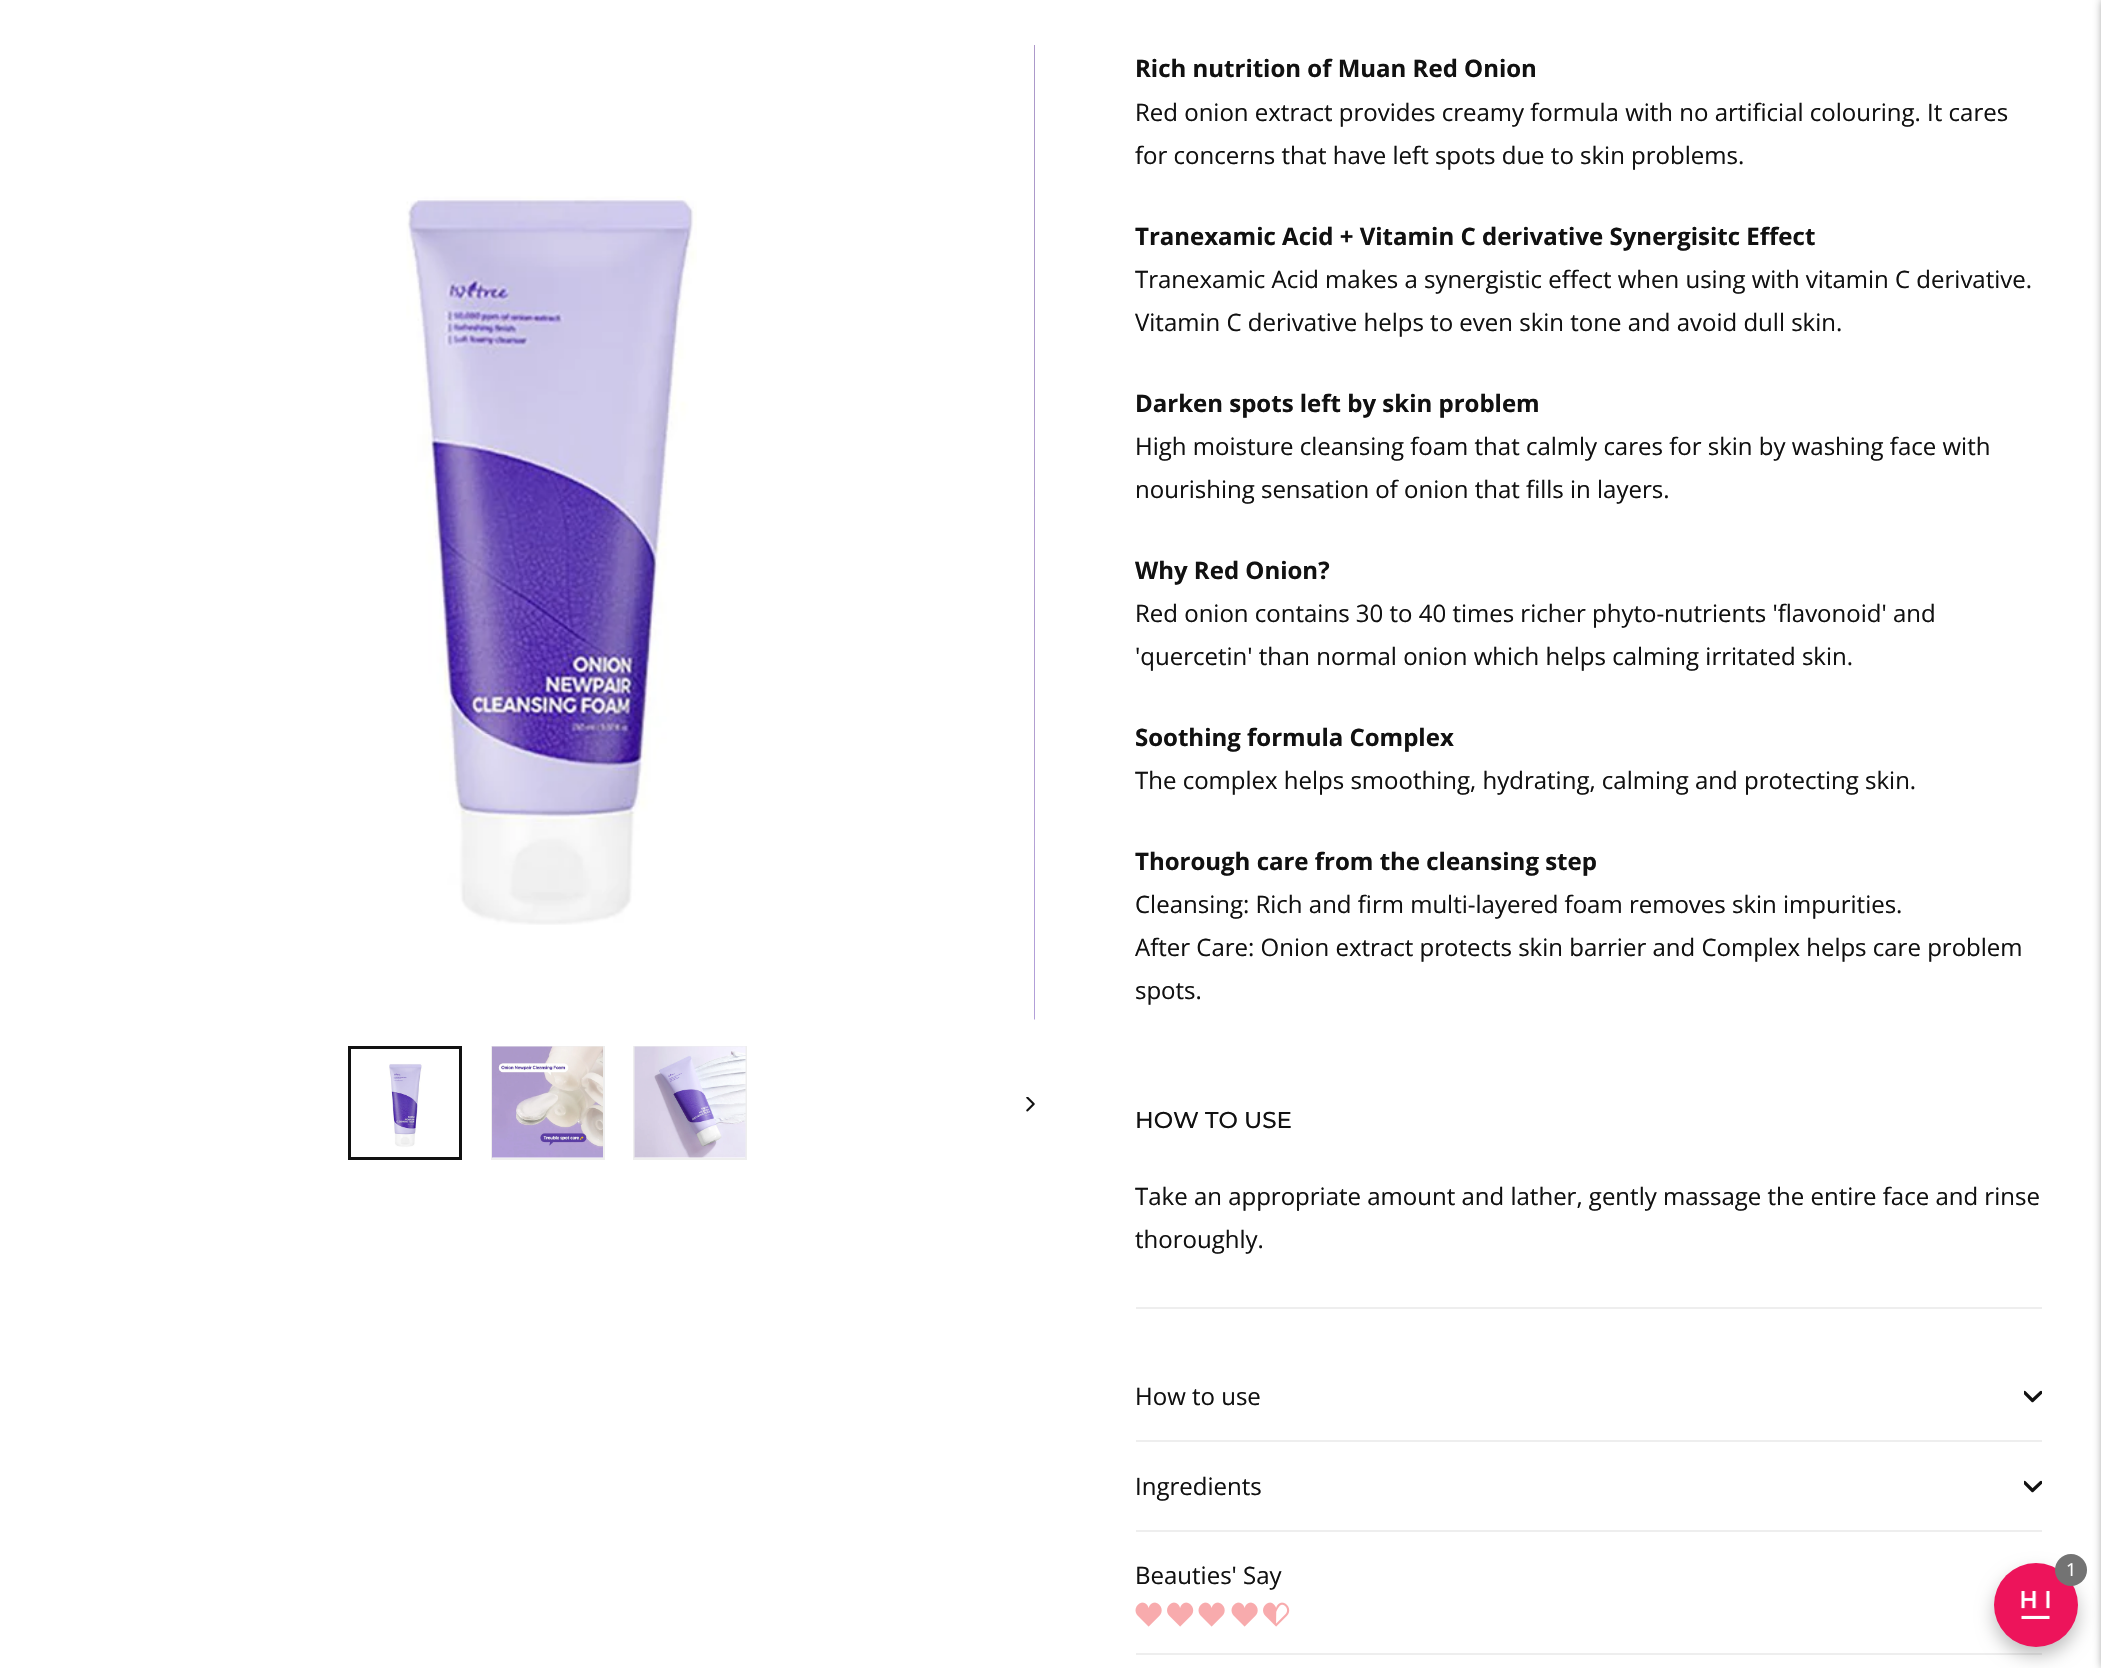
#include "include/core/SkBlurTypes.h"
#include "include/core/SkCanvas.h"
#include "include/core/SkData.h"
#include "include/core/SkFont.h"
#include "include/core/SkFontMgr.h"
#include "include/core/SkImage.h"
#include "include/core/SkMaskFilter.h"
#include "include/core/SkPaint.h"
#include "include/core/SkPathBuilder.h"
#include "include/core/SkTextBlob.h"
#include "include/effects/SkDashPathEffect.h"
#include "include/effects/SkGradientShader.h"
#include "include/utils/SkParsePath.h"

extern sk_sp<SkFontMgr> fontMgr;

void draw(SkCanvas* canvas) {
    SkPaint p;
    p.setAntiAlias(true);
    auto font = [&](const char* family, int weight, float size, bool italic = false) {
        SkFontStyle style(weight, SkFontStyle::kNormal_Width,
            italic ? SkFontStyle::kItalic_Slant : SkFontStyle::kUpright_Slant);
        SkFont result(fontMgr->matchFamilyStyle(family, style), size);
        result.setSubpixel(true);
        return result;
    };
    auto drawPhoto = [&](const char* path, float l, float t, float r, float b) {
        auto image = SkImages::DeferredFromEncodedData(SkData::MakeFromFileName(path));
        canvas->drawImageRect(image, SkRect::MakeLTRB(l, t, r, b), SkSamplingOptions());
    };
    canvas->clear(0xFFFFFFFF);
    drawPhoto("media/1.png", 406, 196, 697, 925);
    drawPhoto("media/2.png", 1034, 45, 1035, 1020);
    drawPhoto("media/3.png", 351, 1049, 459, 1157);
    p.setStyle(SkPaint::kStroke_Style);
    p.setStrokeWidth(3);
    p.setColor(0xFF111111);
    canvas->drawRect(SkRect::MakeLTRB(349.5f, 1047.5f, 460.5f, 1158.5f), p);
    p.setStrokeWidth(2);
    p.setColor(0xFFEEEEEE);
    canvas->drawRect(SkRect::MakeLTRB(492, 1047, 604, 1159), p);
    drawPhoto("media/4.png", 492, 1046, 603, 1158);
    canvas->drawRect(SkRect::MakeLTRB(634, 1047, 746, 1159), p);
    drawPhoto("media/5.png", 634, 1046, 746, 1158);
    drawPhoto("media/6.png", 1026, 1097, 1035, 1112);
    auto font1 = font("Open Sans", 700, 24);
    p.setStyle(SkPaint::kFill_Style);
    p.setColor(0xFF111111);
    canvas->drawString("Rich nutrition of Muan Red Onion", 1135, 77, font1, p);
    auto font2 = font("Open Sans", 400, 24);
    canvas->drawString("Red onion extract provides creamy formula with no artificial colouring. It cares", 1135, 121, font2, p);
    canvas->drawString("for concerns that have left spots due to skin problems.", 1135, 164, font2, p);
    canvas->drawString("Tranexamic Acid + Vitamin C derivative Synergisitc Effect", 1135, 245, font1, p);
    canvas->drawString("Tranexamic Acid makes a synergistic effect when using with vitamin C derivative.", 1135, 288, font2, p);
    canvas->drawString("Vitamin C derivative helps to even skin tone and avoid dull skin.", 1135, 331, font2, p);
    canvas->drawString("Darken spots left by skin problem", 1135, 412, font1, p);
    canvas->drawString("High moisture cleansing foam that calmly cares for skin by washing face with", 1135, 455, font2, p);
    canvas->drawString("nourishing sensation of onion that fills in layers.", 1135, 498, font2, p);
    canvas->drawString("Why Red Onion?", 1135, 579, font1, p);
    canvas->drawString("Red onion contains 30 to 40 times richer phyto-nutrients 'flavonoid' and", 1135, 622, font2, p);
    canvas->drawString("'quercetin' than normal onion which helps calming irritated skin.", 1135, 665, font2, p);
    canvas->drawString("Soothing formula Complex", 1135, 746, font1, p);
    canvas->drawString("The complex helps smoothing, hydrating, calming and protecting skin.", 1135, 789, font2, p);
    canvas->drawString("Thorough care from the cleansing step", 1135, 870, font1, p);
    {
        const struct { const char* s; float x, y; } items[] = {
            {"Cleansing: Rich and firm multi-layered foam removes skin impurities.", 1135, 913},
            {"After Care: Onion extract protects skin barrier and Complex helps care problem", 1135, 956},
            {"spots.", 1135, 999},
        };
        for (auto [s, x, y] : items) {
            canvas->drawString(s, x, y, font2, p);
        }
    }
    auto font3 = font("Montserrat", 500, 23);
    canvas->drawString("HOW TO USE", 1135, 1128, font3, p);
    canvas->drawString("Take an appropriate amount and lather, gently massage the entire face and rinse", 1135, 1205, font2, p);
    canvas->drawString("thoroughly.", 1135, 1248, font2, p);
    p.setColor(0xFFEEEEEE);
    canvas->drawRect(SkRect::MakeLTRB(1136, 1307, 2042, 1309), p);
    canvas->drawRect(SkRect::MakeLTRB(1136, 1440, 2042, 1442), p);
    p.setColor(0xFF111111);
    canvas->drawString("How to use", 1135, 1405, font2, p);
    canvas->save();
    canvas->clipRect(SkRect::MakeLTRB(2024, 1388, 2042, 1406));
    p.setStyle(SkPaint::kStroke_Style);
    p.setStrokeWidth(3.2f);
    p.setStrokeCap(SkPaint::kRound_Cap);
    p.setStrokeJoin(SkPaint::kRound_Join);
    canvas->drawPath(SkPathBuilder().moveTo(2024.5f, 1392.5f).lineTo(2032.5f, 1400.5f).lineTo(2041, 1392.5f).detach(), p);
    canvas->restore();
    p.setStyle(SkPaint::kFill_Style);
    p.setColor(0xFFEEEEEE);
    canvas->drawRect(SkRect::MakeLTRB(1136, 1530, 2042, 1532), p);
    p.setColor(0xFF111111);
    canvas->drawString("Ingredients", 1135, 1495, font2, p);
    canvas->save();
    canvas->clipRect(SkRect::MakeLTRB(2024, 1478, 2042, 1496));
    p.setStyle(SkPaint::kStroke_Style);
    canvas->drawPath(SkPathBuilder().moveTo(2024.5f, 1482.5f).lineTo(2032.5f, 1490.5f).lineTo(2041, 1482.5f).detach(), p);
    canvas->restore();
    p.setStyle(SkPaint::kFill_Style);
    p.setColor(0xFFEEEEEE);
    canvas->drawRect(SkRect::MakeLTRB(1136, 1653, 2042, 1655), p);
    p.setColor(0xFF111111);
    canvas->drawString("Beauties' Say", 1135, 1584, font2, p);
    drawPhoto("media/7.png", 1135, 1602, 1162, 1627);
    drawPhoto("media/8.png", 1167, 1602, 1194, 1627);
    drawPhoto("media/7.png", 1198, 1602, 1225, 1627);
    drawPhoto("media/7.png", 1231, 1602, 1258, 1627);
    drawPhoto("media/9.png", 1263, 1602, 1290, 1627);
    p.setColor(0x40000000);
    p.setMaskFilter(SkMaskFilter::MakeBlur(kNormal_SkBlurStyle, 9));
    canvas->drawRoundRect(SkRect::MakeLTRB(1994, 1572, 2078, 1656), 42, 42, p);
    p.setMaskFilter(nullptr);
    p.setColor(0xFFED145B);
    canvas->drawCircle(2036, 1605, 42, p);
    drawPhoto("media/10.png", 2021, 1591, 2050, 1619);
    p.setColor(0xFF737373);
    canvas->drawCircle(2071, 1570, 16, p);
    auto font4 = font("Open Sans", 400, 18);
    p.setColor(0xFFFFFFFF);
    canvas->drawString("1", 2066, 1576, font4, p);
    p.setColor(0x80000000);
    p.setMaskFilter(SkMaskFilter::MakeBlur(kNormal_SkBlurStyle, 5));
    canvas->drawRect(SkRect::MakeLTRB(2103, 0, 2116, 1668), p);
    p.setMaskFilter(nullptr);
}
